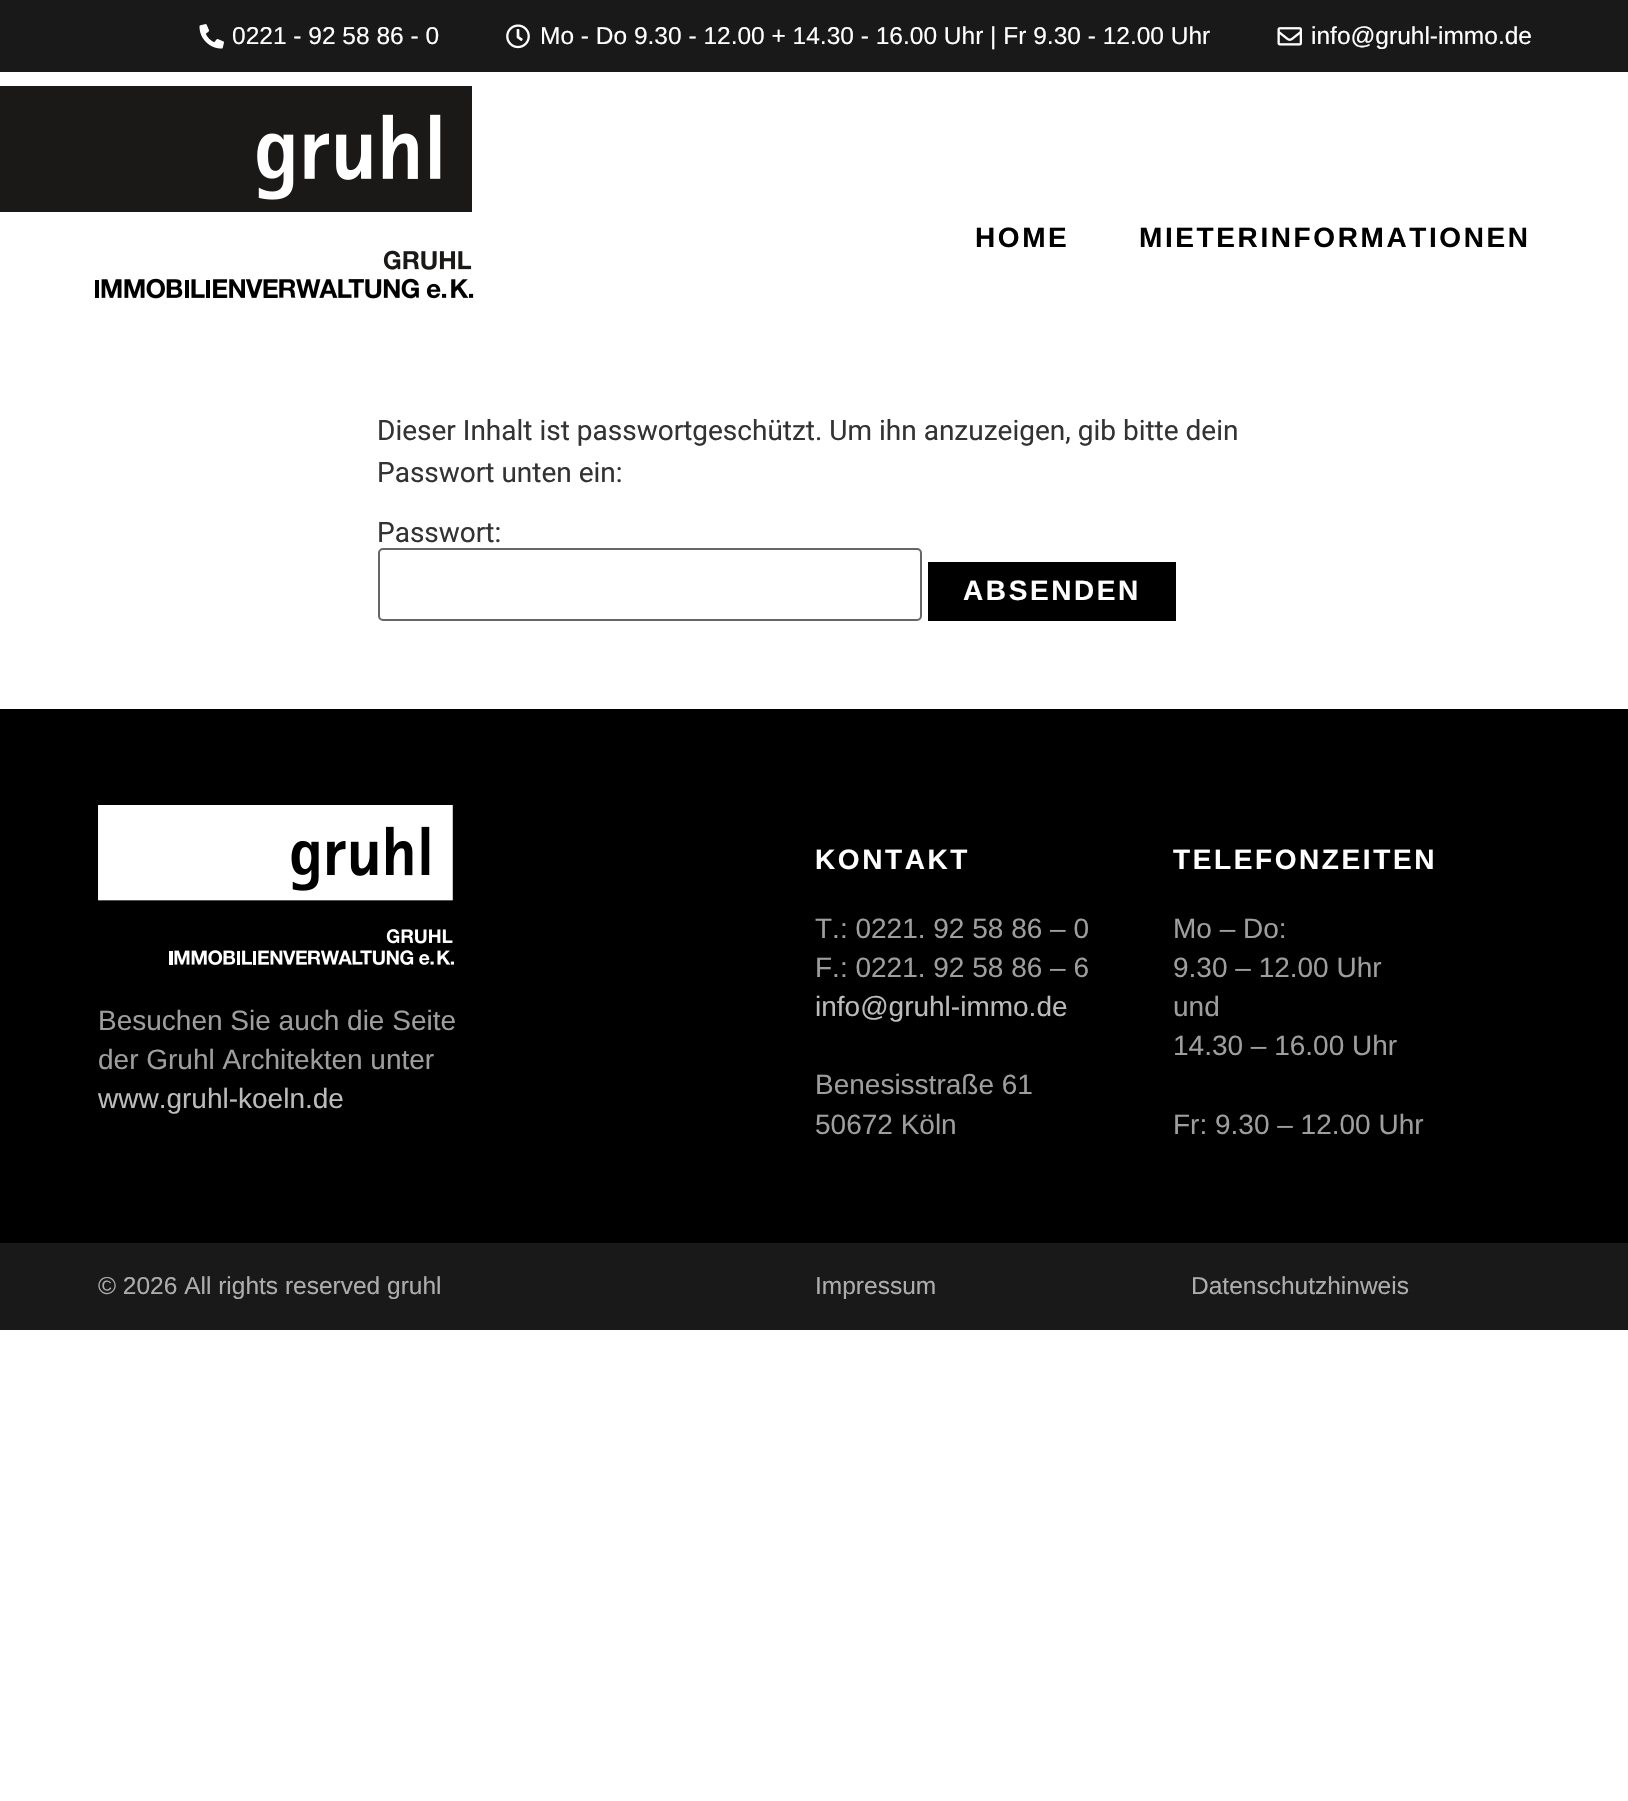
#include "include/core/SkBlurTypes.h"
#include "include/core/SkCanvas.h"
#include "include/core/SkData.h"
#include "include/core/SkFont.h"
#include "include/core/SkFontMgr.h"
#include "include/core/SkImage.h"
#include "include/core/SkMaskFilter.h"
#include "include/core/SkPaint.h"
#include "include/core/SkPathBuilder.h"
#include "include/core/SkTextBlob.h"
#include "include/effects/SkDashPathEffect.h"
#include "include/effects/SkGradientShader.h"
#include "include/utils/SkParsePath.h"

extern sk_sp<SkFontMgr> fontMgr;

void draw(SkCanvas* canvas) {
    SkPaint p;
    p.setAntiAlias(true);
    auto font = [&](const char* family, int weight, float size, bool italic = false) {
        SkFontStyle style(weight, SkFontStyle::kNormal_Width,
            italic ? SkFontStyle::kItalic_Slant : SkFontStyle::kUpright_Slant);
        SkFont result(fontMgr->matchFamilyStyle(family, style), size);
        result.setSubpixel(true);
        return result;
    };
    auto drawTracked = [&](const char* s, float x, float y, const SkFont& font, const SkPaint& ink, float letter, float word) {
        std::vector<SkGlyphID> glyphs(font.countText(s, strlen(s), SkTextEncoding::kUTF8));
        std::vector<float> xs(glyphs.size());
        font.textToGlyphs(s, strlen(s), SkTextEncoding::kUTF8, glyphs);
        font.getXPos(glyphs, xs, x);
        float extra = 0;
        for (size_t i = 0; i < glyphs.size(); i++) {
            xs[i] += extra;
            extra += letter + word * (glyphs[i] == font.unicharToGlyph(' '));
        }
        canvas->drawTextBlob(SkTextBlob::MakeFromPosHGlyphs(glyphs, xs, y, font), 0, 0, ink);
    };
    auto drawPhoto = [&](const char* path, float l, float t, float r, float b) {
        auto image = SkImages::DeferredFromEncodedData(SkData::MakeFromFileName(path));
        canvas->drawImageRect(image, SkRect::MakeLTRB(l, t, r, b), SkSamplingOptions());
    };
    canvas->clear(0xFFFFFFFF);
    p.setColor(0xFF191919);
    canvas->drawRect(SkRect::MakeLTRB(0, 0, 1628, 72), p);
    drawPhoto("media/1.png", 199, 24, 224, 49);
    auto font1 = font("Arimo", 400, 24.5f);
    p.setColor(0xFFFFFFFF);
    canvas->drawString("0221 - 92 58 86 - 0", 232, 44, font1, p);
    drawPhoto("media/2.png", 506, 24, 530, 49);
    canvas->drawString("Mo - Do 9.30 - 12.00 + 14.30 - 16.00 Uhr | Fr 9.30 - 12.00 Uhr", 540, 44, font1, p);
    drawPhoto("media/3.png", 1277, 27, 1302, 46);
    canvas->drawString("info@gruhl-immo.de", 1311, 44, font1, p);
    drawPhoto("media/4.png", 0, 86, 474, 299);
    auto font2 = font("Arimo", 700, 28);
    p.setColor(0xFF000000);
    drawTracked("HOME", 975, 247, font2, p, 2.6f, 0);
    drawTracked("MIETERINFORMATIONEN", 1139, 247, font2, p, 2.6f, 0);
    auto font3 = font("Roboto", 400, 28);
    p.setColor(0xFF333333);
    {
        const struct { const char* s; float x, y; } items[] = {
            {"Dieser Inhalt ist passwortgeschützt. Um ihn anzuzeigen, gib bitte dein", 377, 440},
            {"Passwort unten ein:", 377, 482},
            {"Passwort:", 377, 542},
        };
        for (auto [s, x, y] : items) {
            canvas->drawString(s, x, y, font3, p);
        }
    }
    p.setStyle(SkPaint::kStroke_Style);
    p.setStrokeWidth(2);
    p.setColor(0xFF666666);
    canvas->drawRoundRect(SkRect::MakeLTRB(379, 549, 921, 620), 4, 4, p);
    p.setStyle(SkPaint::kFill_Style);
    p.setColor(0xFF000000);
    canvas->drawRect(SkRect::MakeLTRB(928, 562, 1176, 621), p);
    p.setColor(0xFFFFFFFF);
    drawTracked("ABSENDEN", 963, 600, font2, p, 2.6f, 0);
    p.setColor(0xFF000000);
    canvas->drawRect(SkRect::MakeLTRB(0, 709, 1628, 1243), p);
    drawPhoto("media/5.png", 98, 805, 454, 965);
    auto font4 = font("Arimo", 400, 28);
    p.setColor(0xFF9E9E9E);
    canvas->drawString("Besuchen Sie auch die Seite", 98, 1030, font4, p);
    canvas->drawString("der Gruhl Architekten unter", 98, 1069, font4, p);
    p.setColor(0xFFBBBBBB);
    canvas->drawString("www.gruhl-koeln.de", 98, 1108, font4, p);
    p.setColor(0xFFFFFFFF);
    drawTracked("KONTAKT", 815, 869, font2, p, 2.6f, 0);
    p.setColor(0xFF9E9E9E);
    canvas->drawString("T.: 0221. 92 58 86 – 0", 815, 938, font4, p);
    canvas->drawString("F.: 0221. 92 58 86 – 6", 815, 977, font4, p);
    p.setColor(0xFFBBBBBB);
    canvas->drawString("info@gruhl-immo.de", 815, 1016, font4, p);
    p.setColor(0xFF9E9E9E);
    canvas->drawString("Benesisstraße 61", 815, 1094, font4, p);
    canvas->drawString("50672 Köln", 815, 1134, font4, p);
    p.setColor(0xFFFFFFFF);
    drawTracked("TELEFONZEITEN", 1173, 869, font2, p, 2.6f, 0);
    p.setColor(0xFF9E9E9E);
    {
        const struct { const char* s; float x, y; } items[] = {
            {"Mo – Do:", 1173, 938},
            {"9.30 – 12.00 Uhr", 1173, 977},
            {"und", 1173, 1016},
            {"14.30 – 16.00 Uhr", 1173, 1055},
            {"Fr: 9.30 – 12.00 Uhr", 1173, 1134},
        };
        for (auto [s, x, y] : items) {
            canvas->drawString(s, x, y, font4, p);
        }
    }
    p.setColor(0xFF191919);
    canvas->drawRect(SkRect::MakeLTRB(0, 1243, 1628, 1330), p);
    p.setColor(0xFFADADAD);
    {
        const struct { const char* s; float x, y; } items[] = {
            {"© 2026 All rights reserved gruhl", 98, 1294},
            {"Impressum", 815, 1294},
            {"Datenschutzhinweis", 1191, 1294},
        };
        for (auto [s, x, y] : items) {
            canvas->drawString(s, x, y, font1, p);
        }
    }
}
